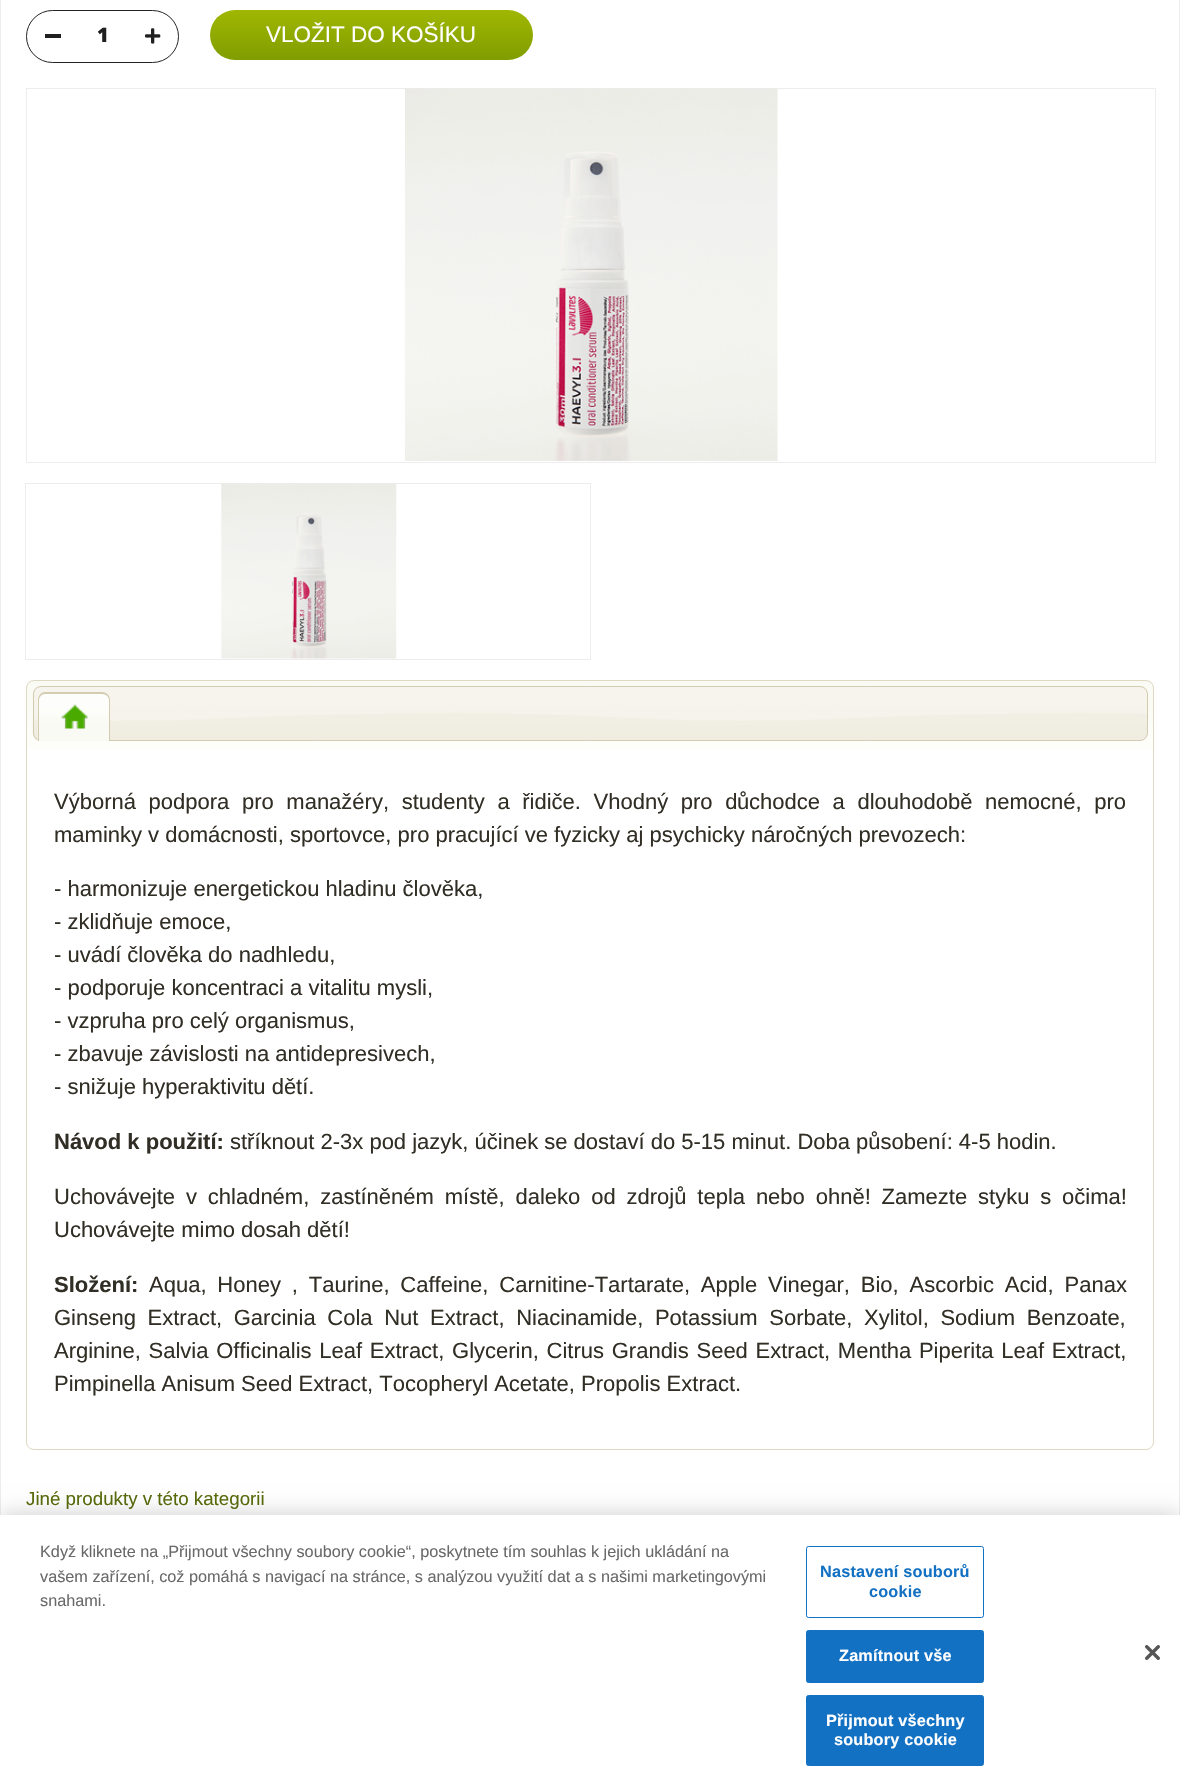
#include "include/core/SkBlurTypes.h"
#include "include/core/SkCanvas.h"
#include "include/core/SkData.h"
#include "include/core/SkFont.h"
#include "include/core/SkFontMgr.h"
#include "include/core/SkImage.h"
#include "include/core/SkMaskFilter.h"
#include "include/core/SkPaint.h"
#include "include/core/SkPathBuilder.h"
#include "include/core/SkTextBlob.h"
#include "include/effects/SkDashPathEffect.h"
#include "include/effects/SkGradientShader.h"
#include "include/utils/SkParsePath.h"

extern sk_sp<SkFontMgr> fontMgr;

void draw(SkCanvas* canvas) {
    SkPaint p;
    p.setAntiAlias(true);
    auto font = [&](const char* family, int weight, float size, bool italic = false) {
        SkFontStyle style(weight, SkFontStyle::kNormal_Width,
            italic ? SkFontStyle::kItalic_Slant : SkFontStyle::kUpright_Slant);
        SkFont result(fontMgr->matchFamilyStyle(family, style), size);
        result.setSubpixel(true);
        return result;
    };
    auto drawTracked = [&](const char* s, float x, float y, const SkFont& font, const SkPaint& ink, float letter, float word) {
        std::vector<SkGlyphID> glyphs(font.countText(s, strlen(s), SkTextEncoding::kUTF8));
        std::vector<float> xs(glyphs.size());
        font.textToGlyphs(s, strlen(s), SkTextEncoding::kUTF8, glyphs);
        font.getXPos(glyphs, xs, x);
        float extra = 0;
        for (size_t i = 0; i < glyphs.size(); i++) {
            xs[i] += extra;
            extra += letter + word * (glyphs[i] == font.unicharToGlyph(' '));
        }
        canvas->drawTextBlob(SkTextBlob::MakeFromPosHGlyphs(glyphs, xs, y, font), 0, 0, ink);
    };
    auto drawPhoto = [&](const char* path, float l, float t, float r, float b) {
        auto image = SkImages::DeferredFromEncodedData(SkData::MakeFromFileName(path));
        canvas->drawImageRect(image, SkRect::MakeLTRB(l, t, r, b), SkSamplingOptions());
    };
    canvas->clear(0xFFFFFFFF);
    p.setStyle(SkPaint::kStroke_Style);
    p.setStrokeWidth(1);
    p.setColor(0xFFEDEDED);
    canvas->drawRect(SkRect::MakeLTRB(0.5f, -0.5f, 1179.5f, 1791.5f), p);
    p.setColor(0xFF222222);
    canvas->drawRoundRect(SkRect::MakeLTRB(26.5f, 10.5f, 178.5f, 62.5f), 26, 26, p);
    p.setStyle(SkPaint::kFill_Style);
    p.setColor(0xFF202020);
    canvas->drawRect(SkRect::MakeLTRB(45, 34, 61, 38), p);
    auto font1 = font("Open Sans", 800, 20);
    canvas->drawString("1", 97, 42, font1, p);
    drawPhoto("media/1.png", 145, 28, 161, 44);
    {
        const SkColor colors[] = {0xFFA0B701, 0xFF809D01};
        const float stops[] = {0, 1};
        const SkPoint ends[] = {{210, 10}, {210, 60}};
        p.setShader(SkGradientShader::MakeLinear(ends, colors, stops, 2, SkTileMode::kClamp));
        p.setAlpha(255);
    }
    canvas->drawRoundRect(SkRect::MakeLTRB(210, 10, 533, 60), 25, 25, p);
    auto font2 = font("Liberation Sans", 400, 22.5f);
    p.setShader(nullptr);
    p.setColor(0xFFFFFFFF);
    canvas->drawString("VLOŽIT DO KOŠÍKU", 266, 42, font2, p);
    p.setStyle(SkPaint::kStroke_Style);
    p.setColor(0xFFEDEDED);
    canvas->drawRect(SkRect::MakeLTRB(26.5f, 88.5f, 1155.5f, 462.5f), p);
    drawPhoto("media/2.png", 405, 88, 778, 461);
    canvas->drawRect(SkRect::MakeLTRB(25.5f, 483.5f, 590.5f, 659.5f), p);
    drawPhoto("media/3.png", 221, 483, 397, 659);
    drawPhoto("media/4.png", 26, 681, 1154, 749);
    p.setColor(0xFFDFD9C3);
    canvas->drawRoundRect(SkRect::MakeLTRB(26.5f, 680.5f, 1153.5f, 1449.5f), 7.5f, 7.5f, p);
    drawPhoto("media/5.png", 32, 686, 1148, 741);
    p.setColor(0xFFD4CCB0);
    canvas->drawRoundRect(SkRect::MakeLTRB(33.5f, 686.5f, 1147.5f, 740.5f), 7.5f, 7.5f, p);
    drawPhoto("media/6.png", 37, 692, 110, 741);
    p.setStyle(SkPaint::kFill_Style);
    canvas->drawPath(SkPathBuilder(SkPathFillType::kEvenOdd).moveTo(45, 692).lineTo(102, 692).cubicTo(107, 692, 110, 696, 110, 700).lineTo(110, 741).lineTo(38, 741).lineTo(38, 700).cubicTo(38, 696, 41, 692, 45, 692).close().moveTo(45, 694).lineTo(102, 694).cubicTo(106, 694, 109, 697, 109, 700).lineTo(109, 741).lineTo(39, 741).lineTo(39, 700).cubicTo(39, 697, 42, 694, 45, 694).close().detach(), p);
    drawPhoto("media/7.png", 61, 704, 88, 729);
    auto font3 = font("Liberation Sans", 400, 22);
    p.setColor(0xFF312E25);
    drawTracked("Výborná podpora pro manažéry, studenty a řidiče. Vhodný pro d", 54, 809, font3, p, 0, 6.5f);
    canvas->drawString("ů", 737, 809, font3, p);
    drawTracked("chodce a dlouhodobě nemocné, pro", 749, 809, font3, p, 0, 6.5f);
    {
        const struct { const char* s; float x, y; } items[] = {
            {"maminky v domácnosti, sportovce, pro pracující ve fyzicky aj psychicky náročných prevozech:", 54, 842},
            {"- harmonizuje energetickou hladinu člověka,", 54, 896},
            {"- zklidňuje emoce,", 54, 929},
            {"- uvádí člověka do nadhledu,", 54, 962},
            {"- podporuje koncentraci a vitalitu mysli,", 54, 995},
            {"- vzpruha pro celý organismus,", 54, 1028},
            {"- zbavuje závislosti na antidepresivech,", 54, 1061},
            {"- snižuje hyperaktivitu dětí.", 54, 1094},
        };
        for (auto [s, x, y] : items) {
            canvas->drawString(s, x, y, font3, p);
        }
    }
    auto font4 = font("Liberation Sans", 700, 22);
    canvas->drawString("Návod k použití:", 54, 1149, font4, p);
    canvas->drawString("stříknout 2-3x pod jazyk, účinek se dostaví do 5-15 minut. Doba působení: 4-5 hodin.", 230, 1149, font3, p);
    drawTracked("Uchovávejte v chladném, zastíněném místě, daleko od zdrojů tepla nebo ohně! Zamezte styku s očima!", 54, 1204, font3, p, 0, 4.75f);
    canvas->drawString("Uchovávejte mimo dosah dětí!", 54, 1237, font3, p);
    canvas->drawString("Složení:", 54, 1292, font4, p);
    drawTracked("Aqua, Honey , Taurine, Caffeine, Carnitine-Tartarate, Apple Vinegar, Bio, Ascorbic Acid, Panax", 149, 1292, font3, p, 0, 4.75f);
    drawTracked("Ginseng Extract, Garcinia Cola Nut Extract, Niacinamide, Potassium Sorbate, Xylitol, Sodium Benzoate,", 54, 1325, font3, p, 0, 5.5f);
    drawTracked("Arginine, Salvia Officinalis Leaf Extract, Glycerin, Citrus Grandis Seed Extract, Mentha Piperita Leaf Extract,", 54, 1358, font3, p, 0, 1.6f);
    canvas->drawString("Pimpinella Anisum Seed Extract, Tocopheryl Acetate, Propolis Extract.", 54, 1391, font3, p);
    auto font5 = font("Liberation Sans", 400, 18.75f);
    p.setColor(0xFF596C0C);
    canvas->drawString("Jiné produkty v této kategorii", 26, 1505, font5, p);
    p.setColor(0x33000000);
    p.setMaskFilter(SkMaskFilter::MakeBlur(kNormal_SkBlurStyle, 11));
    canvas->drawRect(SkRect::MakeLTRB(0, 1515, 1180, 1791), p);
    p.setMaskFilter(nullptr);
    p.setColor(0xFFFFFFFF);
    canvas->drawRect(SkRect::MakeLTRB(0, 1515, 1180, 1791), p);
    auto font6 = font("Liberation Sans", 400, 16.25f);
    p.setColor(0xFF696969);
    {
        const struct { const char* s; float x, y; } items[] = {
            {"Když kliknete na „Přijmout všechny soubory cookie“, poskytnete tím souhlas k jejich ukládání na", 40, 1557},
            {"vašem zařízení, což pomáhá s navigací na stránce, s analýzou využití dat a s našimi marketingovými", 40, 1582},
            {"snahami.", 40, 1606},
        };
        for (auto [s, x, y] : items) {
            canvas->drawString(s, x, y, font6, p);
        }
    }
    p.setStyle(SkPaint::kStroke_Style);
    p.setColor(0xFF1371C3);
    canvas->drawRoundRect(SkRect::MakeLTRB(806.5f, 1546.5f, 983.5f, 1617.5f), 2, 2, p);
    auto font7 = font("Liberation Sans", 700, 16.25f);
    p.setStyle(SkPaint::kFill_Style);
    drawTracked("Nastavení souborů", 820, 1577, font7, p, 0.2f, 0);
    drawTracked("cookie", 869, 1597, font7, p, 0.2f, 0);
    canvas->drawRoundRect(SkRect::MakeLTRB(806.5f, 1630.5f, 983.5f, 1682.5f), 2, 2, p);
    p.setStyle(SkPaint::kStroke_Style);
    canvas->drawRoundRect(SkRect::MakeLTRB(806.5f, 1630.5f, 983.5f, 1682.5f), 2, 2, p);
    p.setStyle(SkPaint::kFill_Style);
    p.setColor(0xFFFFFFFF);
    drawTracked("Zamítnout vše", 839, 1661, font7, p, 0.2f, 0);
    p.setColor(0xFF1371C3);
    canvas->drawRoundRect(SkRect::MakeLTRB(806.5f, 1695.5f, 983.5f, 1765.5f), 2, 2, p);
    p.setStyle(SkPaint::kStroke_Style);
    canvas->drawRoundRect(SkRect::MakeLTRB(806.5f, 1695.5f, 983.5f, 1765.5f), 2, 2, p);
    p.setStyle(SkPaint::kFill_Style);
    p.setColor(0xFFFFFFFF);
    drawTracked("Přijmout všechny", 826, 1726, font7, p, 0.2f, 0);
    drawTracked("soubory cookie", 834, 1745, font7, p, 0.2f, 0);
    drawPhoto("media/8.png", 1145, 1645, 1160, 1660);
}
